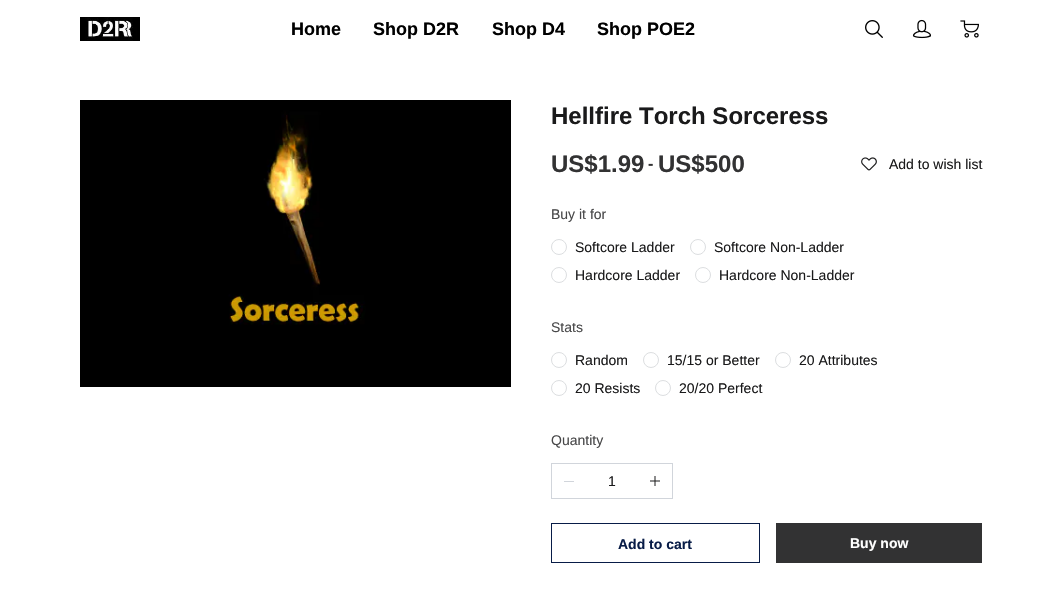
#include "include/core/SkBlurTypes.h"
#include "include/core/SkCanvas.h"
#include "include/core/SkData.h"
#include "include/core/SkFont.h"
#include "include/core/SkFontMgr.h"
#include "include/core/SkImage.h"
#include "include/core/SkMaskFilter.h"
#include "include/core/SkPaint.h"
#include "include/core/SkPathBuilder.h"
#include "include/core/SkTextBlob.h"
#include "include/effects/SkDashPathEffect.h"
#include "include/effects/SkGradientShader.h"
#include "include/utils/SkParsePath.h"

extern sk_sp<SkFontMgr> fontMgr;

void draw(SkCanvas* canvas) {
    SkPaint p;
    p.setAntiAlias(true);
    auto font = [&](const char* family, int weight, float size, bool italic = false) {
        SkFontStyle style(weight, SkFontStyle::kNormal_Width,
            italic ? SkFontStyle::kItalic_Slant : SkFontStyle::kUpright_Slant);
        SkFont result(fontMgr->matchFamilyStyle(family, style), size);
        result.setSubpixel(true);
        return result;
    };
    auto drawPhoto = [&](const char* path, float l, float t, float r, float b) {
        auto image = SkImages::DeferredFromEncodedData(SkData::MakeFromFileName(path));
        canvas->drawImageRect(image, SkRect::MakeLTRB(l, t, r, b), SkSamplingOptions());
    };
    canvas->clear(0xFFFFFFFF);
    drawPhoto("media/1.png", 80, 17, 140, 41);
    auto font1 = font("Liberation Sans", 700, 18);
    p.setColor(0xFF000000);
    {
        const struct { const char* s; float x, y; } items[] = {
            {"Home", 291, 35},
            {"Shop D2R", 373, 35},
            {"Shop D4", 492, 35},
            {"Shop POE2", 597, 35},
        };
        for (auto [s, x, y] : items) {
            canvas->drawString(s, x, y, font1, p);
        }
    }
    drawPhoto("media/2.png", 865, 20, 883, 38);
    drawPhoto("media/3.png", 912, 19, 931, 39);
    drawPhoto("media/4.png", 960, 20, 979, 38);
    drawPhoto("media/5.png", 80, 100, 511, 387);
    auto font2 = font("Liberation Sans", 700, 24);
    p.setColor(0xFF1A1A1B);
    canvas->drawString("Hellfire Torch Sorceress", 551, 124, font2, p);
    p.setColor(0xFF323233);
    canvas->drawString("US$1.99", 551, 172, font2, p);
    auto font3 = font("Liberation Sans", 700, 16);
    canvas->drawString("-", 648, 169, font3, p);
    canvas->drawString("US$500", 658, 172, font2, p);
    drawPhoto("media/6.png", 861, 157, 877, 171);
    auto font4 = font("Liberation Sans", 400, 14);
    p.setColor(0xFF1A1A1B);
    canvas->drawString("Add to wish list", 889, 169, font4, p);
    p.setColor(0xFF484849);
    canvas->drawString("Buy it for", 551, 219, font4, p);
    p.setStyle(SkPaint::kStroke_Style);
    p.setStrokeWidth(1);
    p.setColor(0xFFDCDEE0);
    canvas->drawCircle(559, 247, 7.5f, p);
    p.setStyle(SkPaint::kFill_Style);
    p.setColor(0xFF1A1A1B);
    canvas->drawString("Softcore Ladder", 575, 252, font4, p);
    p.setStyle(SkPaint::kStroke_Style);
    p.setColor(0xFFDCDEE0);
    canvas->drawCircle(698, 247, 7.5f, p);
    p.setStyle(SkPaint::kFill_Style);
    p.setColor(0xFF1A1A1B);
    canvas->drawString("Softcore Non-Ladder", 714, 252, font4, p);
    p.setStyle(SkPaint::kStroke_Style);
    p.setColor(0xFFDCDEE0);
    canvas->drawCircle(559, 275, 7.5f, p);
    p.setStyle(SkPaint::kFill_Style);
    p.setColor(0xFF1A1A1B);
    canvas->drawString("Hardcore Ladder", 575, 280, font4, p);
    p.setStyle(SkPaint::kStroke_Style);
    p.setColor(0xFFDCDEE0);
    canvas->drawCircle(703, 275, 7.5f, p);
    p.setStyle(SkPaint::kFill_Style);
    p.setColor(0xFF1A1A1B);
    canvas->drawString("Hardcore Non-Ladder", 719, 280, font4, p);
    p.setColor(0xFF484849);
    canvas->drawString("Stats", 551, 332, font4, p);
    p.setStyle(SkPaint::kStroke_Style);
    p.setColor(0xFFDCDEE0);
    canvas->drawCircle(559, 360, 7.5f, p);
    p.setStyle(SkPaint::kFill_Style);
    p.setColor(0xFF1A1A1B);
    canvas->drawString("Random", 575, 365, font4, p);
    p.setStyle(SkPaint::kStroke_Style);
    p.setColor(0xFFDCDEE0);
    canvas->drawCircle(651, 360, 7.5f, p);
    p.setStyle(SkPaint::kFill_Style);
    p.setColor(0xFF1A1A1B);
    canvas->drawString("15/15 or Better", 667, 365, font4, p);
    p.setStyle(SkPaint::kStroke_Style);
    p.setColor(0xFFDCDEE0);
    canvas->drawCircle(783, 360, 7.5f, p);
    p.setStyle(SkPaint::kFill_Style);
    p.setColor(0xFF1A1A1B);
    canvas->drawString("20 Attributes", 799, 365, font4, p);
    p.setStyle(SkPaint::kStroke_Style);
    p.setColor(0xFFDCDEE0);
    canvas->drawCircle(559, 388, 7.5f, p);
    p.setStyle(SkPaint::kFill_Style);
    p.setColor(0xFF1A1A1B);
    canvas->drawString("20 Resists", 575, 393, font4, p);
    p.setStyle(SkPaint::kStroke_Style);
    p.setColor(0xFFDCDEE0);
    canvas->drawCircle(663, 388, 7.5f, p);
    p.setStyle(SkPaint::kFill_Style);
    p.setColor(0xFF1A1A1B);
    canvas->drawString("20/20 Perfect", 679, 393, font4, p);
    p.setColor(0xFF484849);
    canvas->drawString("Quantity", 551, 445, font4, p);
    p.setStyle(SkPaint::kStroke_Style);
    p.setColor(0xFFD1D5DB);
    canvas->drawRect(SkRect::MakeLTRB(551.5f, 463.5f, 672.5f, 498.5f), p);
    p.setStyle(SkPaint::kFill_Style);
    canvas->drawRect(SkRect::MakeLTRB(564, 481, 574, 482), p);
    p.setColor(0xFF1A1A1B);
    canvas->drawString("1", 608, 486, font4, p);
    drawPhoto("media/7.png", 650, 476, 660, 486);
    p.setStyle(SkPaint::kStroke_Style);
    p.setColor(0xFF081C47);
    canvas->drawRect(SkRect::MakeLTRB(551.5f, 523.5f, 759.5f, 562.5f), p);
    auto font5 = font("Liberation Sans", 700, 14);
    p.setStyle(SkPaint::kFill_Style);
    canvas->drawString("Add to cart", 618, 549, font5, p);
    p.setColor(0xFF323233);
    canvas->drawRect(SkRect::MakeLTRB(776, 523, 982, 563), p);
    p.setColor(0xFFFFFFFF);
    canvas->drawString("Buy now", 850, 548, font5, p);
}
